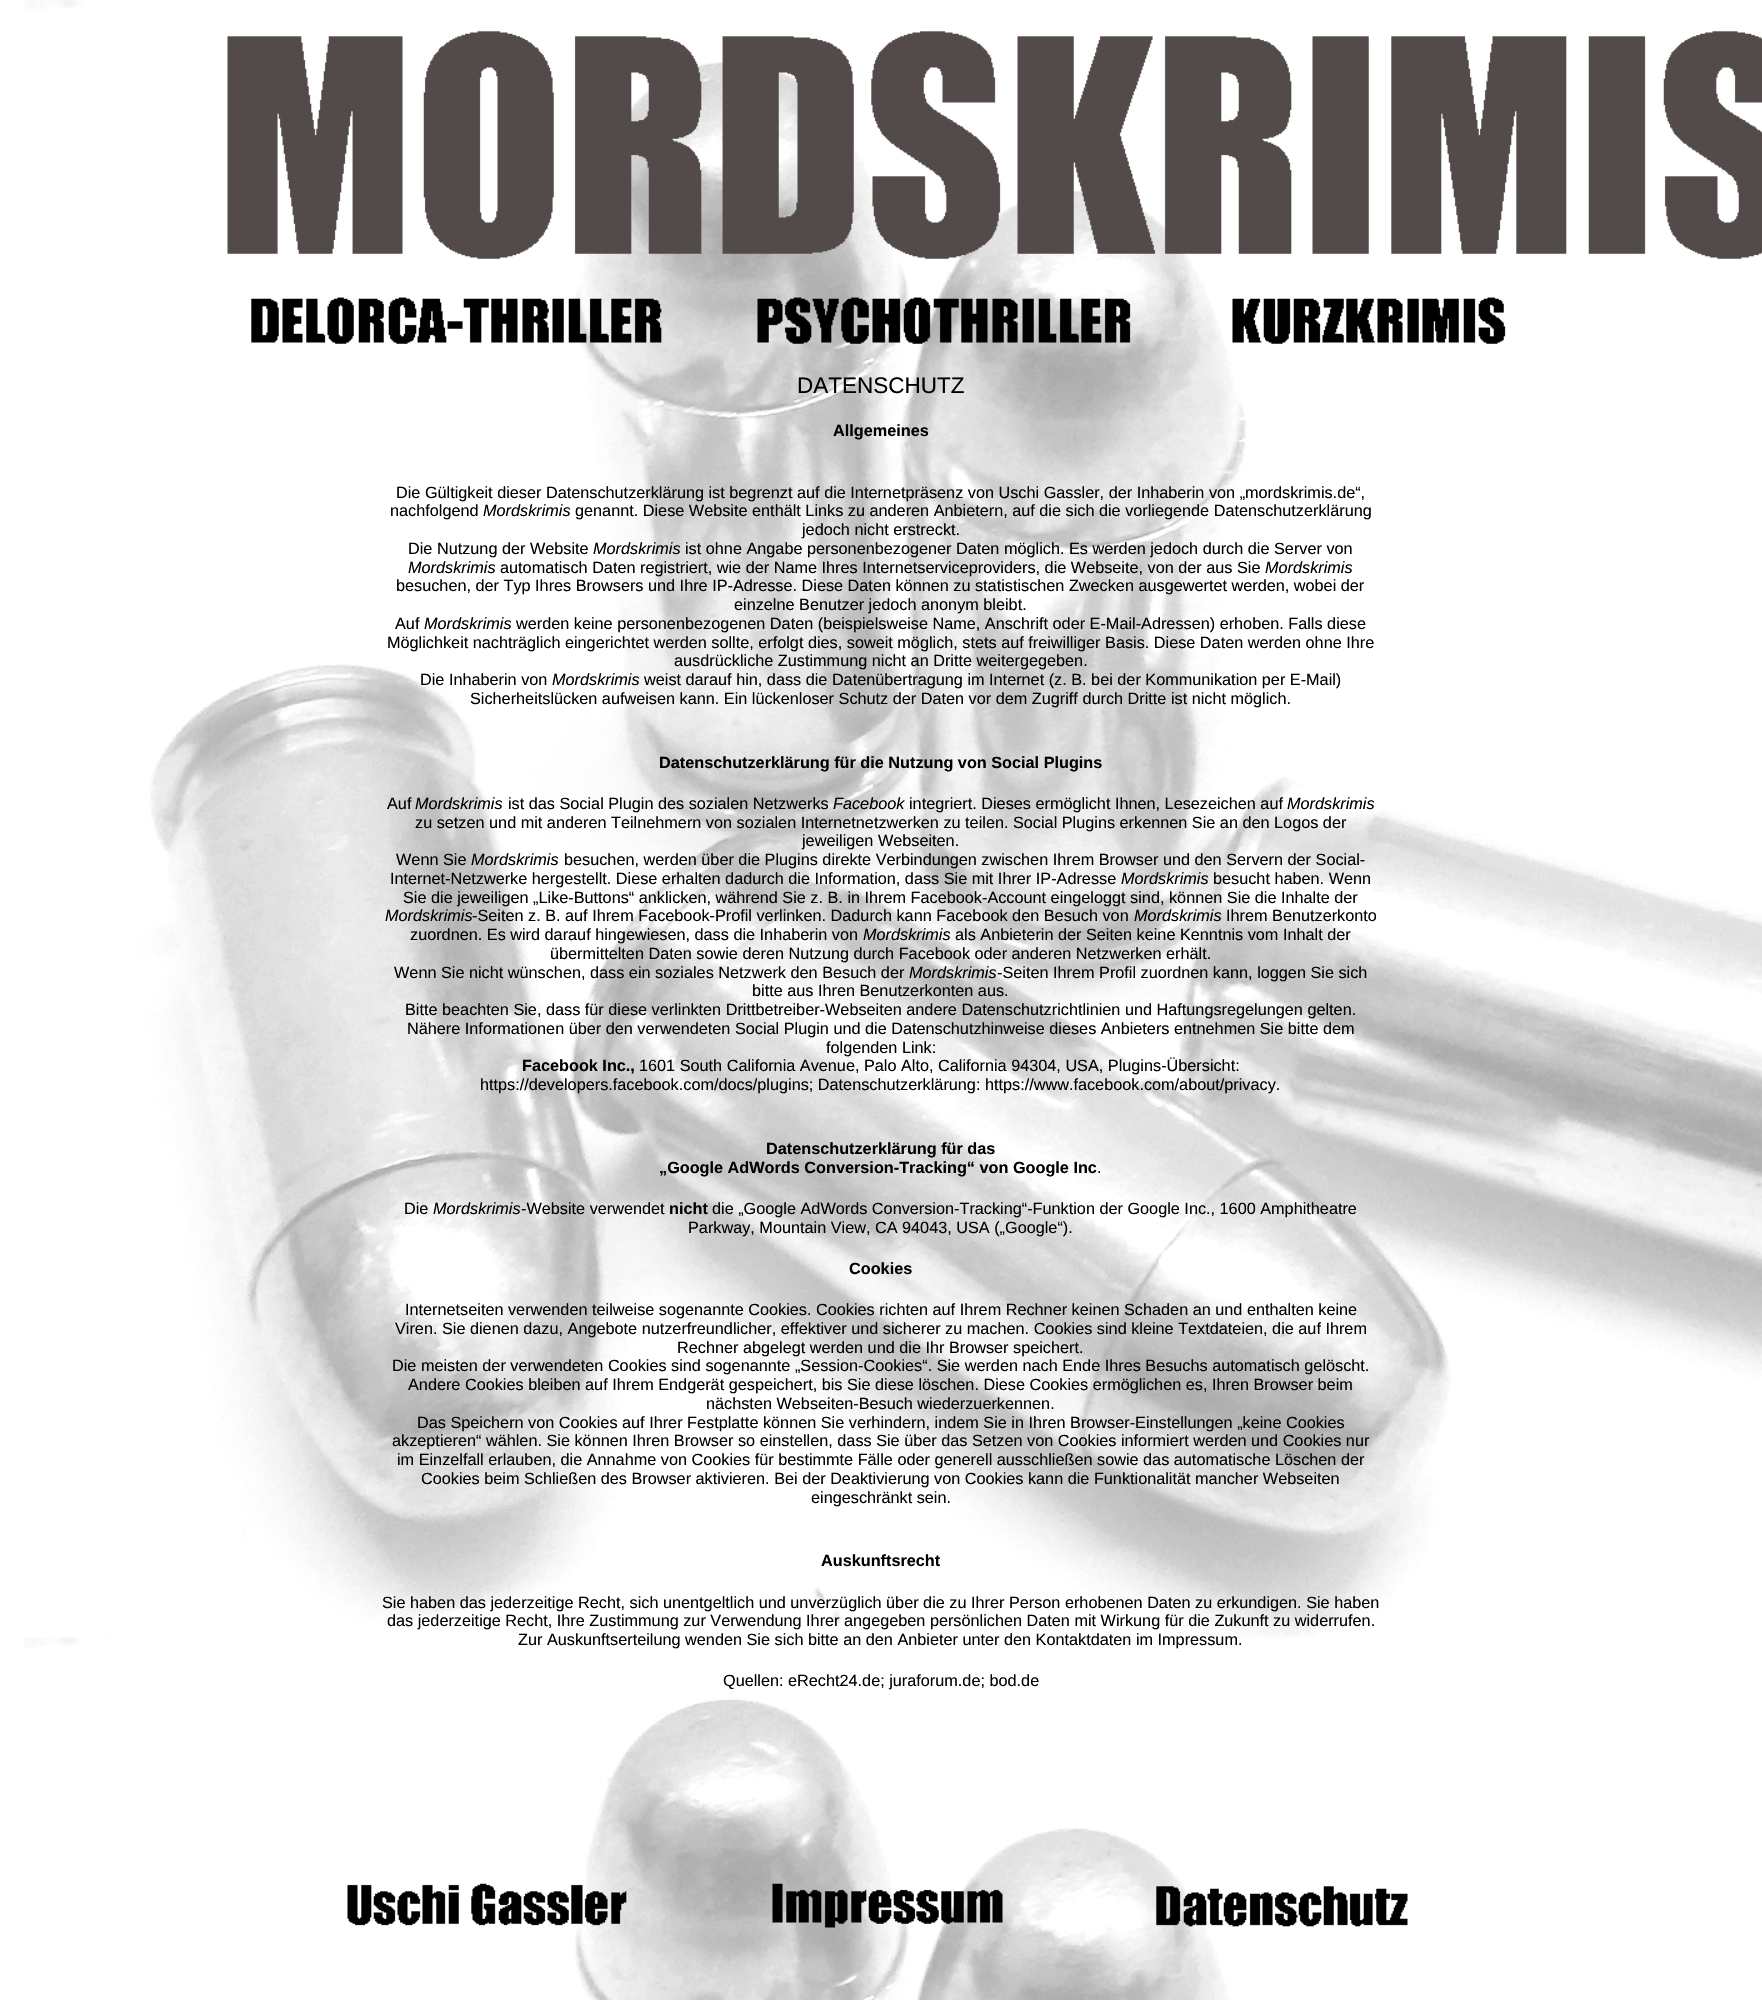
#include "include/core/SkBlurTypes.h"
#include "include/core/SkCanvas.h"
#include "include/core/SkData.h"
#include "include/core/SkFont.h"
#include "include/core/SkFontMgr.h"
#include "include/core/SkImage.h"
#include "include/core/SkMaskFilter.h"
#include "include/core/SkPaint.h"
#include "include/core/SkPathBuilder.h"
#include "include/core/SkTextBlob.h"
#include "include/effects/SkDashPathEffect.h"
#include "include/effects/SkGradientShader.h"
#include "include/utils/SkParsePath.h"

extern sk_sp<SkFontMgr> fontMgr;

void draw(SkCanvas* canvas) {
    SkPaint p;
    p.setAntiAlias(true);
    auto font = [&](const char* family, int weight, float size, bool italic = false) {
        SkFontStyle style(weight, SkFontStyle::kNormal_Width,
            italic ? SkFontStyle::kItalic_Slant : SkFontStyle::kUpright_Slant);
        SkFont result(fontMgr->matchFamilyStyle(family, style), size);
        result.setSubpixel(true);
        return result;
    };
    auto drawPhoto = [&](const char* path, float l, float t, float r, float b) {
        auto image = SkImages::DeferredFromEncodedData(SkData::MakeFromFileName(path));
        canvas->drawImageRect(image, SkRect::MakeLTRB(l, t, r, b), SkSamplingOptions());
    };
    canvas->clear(0xFFFFFFFF);
    drawPhoto("media/1.png", 24, 0, 1762, 2000);
    drawPhoto("media/2.png", 227, 31, 1762, 259);
    drawPhoto("media/3.png", 251, 297, 662, 344);
    drawPhoto("media/4.png", 757, 297, 1131, 344);
    drawPhoto("media/5.png", 1232, 297, 1506, 344);
    auto font1 = font("Liberation Sans", 400, 22.5f);
    p.setColor(0xFF000000);
    canvas->drawString("DATENSCHUTZ", 797, 393, font1, p);
    auto font2 = font("Liberation Sans", 700, 16.25f);
    canvas->drawString("Allgemeines", 833, 436, font2, p);
    auto font3 = font("Liberation Sans", 400, 16.25f);
    canvas->drawString("Die Gültigkeit dieser Datenschutzerklärung ist begrenzt auf die Internetpräsenz von Uschi Gassler, der Inhaberin von „mordskrimis.de“,", 396, 498, font3, p);
    canvas->drawString("nachfolgend", 390, 516, font3, p);
    auto font4 = font("Liberation Sans", 400, 16.25f, true);
    canvas->drawString("Mordskrimis", 483, 516, font4, p);
    {
        const struct { const char* s; float x, y; } items[] = {
            {"genannt. Diese Website enthält Links zu anderen Anbietern, auf die sich die vorliegende Datenschutzerklärung", 575, 516},
            {"jedoch nicht erstreckt.", 802, 535},
            {"Die Nutzung der Website", 408, 554},
        };
        for (auto [s, x, y] : items) {
            canvas->drawString(s, x, y, font3, p);
        }
    }
    canvas->drawString("Mordskrimis", 593, 554, font4, p);
    canvas->drawString("ist ohne Angabe personenbezogener Daten möglich. Es werden jedoch durch die Server von", 685, 554, font3, p);
    canvas->drawString("Mordskrimis", 408, 573, font4, p);
    canvas->drawString("automatisch Daten registriert, wie der Name Ihres Internetserviceproviders, die Webseite, von der aus Sie", 500, 573, font3, p);
    canvas->drawString("Mordskrimis", 1265, 573, font4, p);
    {
        const struct { const char* s; float x, y; } items[] = {
            {"besuchen, der Typ Ihres Browsers und Ihre IP-Adresse. Diese Daten können zu statistischen Zwecken ausgewertet werden, wobei der", 396, 591},
            {"einzelne Benutzer jedoch anonym bleibt.", 734, 610},
            {"Auf", 395, 629},
        };
        for (auto [s, x, y] : items) {
            canvas->drawString(s, x, y, font3, p);
        }
    }
    canvas->drawString("Mordskrimis", 424, 629, font4, p);
    {
        const struct { const char* s; float x, y; } items[] = {
            {"werden keine personenbezogenen Daten (beispielsweise Name, Anschrift oder E-Mail-Adressen) erhoben. Falls diese", 516, 629},
            {"Möglichkeit nachträglich eingerichtet werden sollte, erfolgt dies, soweit möglich, stets auf freiwilliger Basis. Diese Daten werden ohne Ihre", 387, 648},
            {"ausdrückliche Zustimmung nicht an Dritte weitergegeben.", 674, 666},
            {"Die Inhaberin von", 420, 685},
        };
        for (auto [s, x, y] : items) {
            canvas->drawString(s, x, y, font3, p);
        }
    }
    canvas->drawString("Mordskrimis", 552, 685, font4, p);
    canvas->drawString("weist darauf hin, dass die Datenübertragung im Internet (z. B. bei der Kommunikation per E-Mail)", 644, 685, font3, p);
    canvas->drawString("Sicherheitslücken aufweisen kann. Ein lückenloser Schutz der Daten vor dem Zugriff durch Dritte ist nicht möglich.", 470, 704, font3, p);
    canvas->drawString("Datenschutzerklärung für die Nutzung von Social Plugins", 659, 768, font2, p);
    canvas->drawString("Auf", 387, 809, font3, p);
    canvas->drawString("Mordskrimis", 415, 809, font4, p);
    canvas->drawString("ist das Social Plugin des sozialen Netzwerks", 508, 809, font3, p);
    canvas->drawString("Facebook", 833, 809, font4, p);
    canvas->drawString("integriert. Dieses ermöglicht Ihnen, Lesezeichen auf", 909, 809, font3, p);
    canvas->drawString("Mordskrimis", 1287, 809, font4, p);
    {
        const struct { const char* s; float x, y; } items[] = {
            {"zu setzen und mit anderen Teilnehmern von sozialen Internetnetzwerken zu teilen. Social Plugins erkennen Sie an den Logos der", 415, 828},
            {"jeweiligen Webseiten.", 802, 846},
            {"Wenn Sie", 396, 865},
        };
        for (auto [s, x, y] : items) {
            canvas->drawString(s, x, y, font3, p);
        }
    }
    canvas->drawString("Mordskrimis", 471, 865, font4, p);
    canvas->drawString("besuchen, werden über die Plugins direkte Verbindungen zwischen Ihrem Browser und den Servern der Social-", 564, 865, font3, p);
    canvas->drawString("Internet-Netzwerke hergestellt. Diese erhalten dadurch die Information, dass Sie mit Ihrer IP-Adresse", 390, 884, font3, p);
    canvas->drawString("Mordskrimis", 1121, 884, font4, p);
    canvas->drawString("besucht haben. Wenn", 1213, 884, font3, p);
    canvas->drawString("Sie die jeweiligen „Like-Buttons“ anklicken, während Sie z. B. in Ihrem Facebook-Account eingeloggt sind, können Sie die Inhalte der", 403, 903, font3, p);
    canvas->drawString("Mordskrimis", 385, 921, font4, p);
    canvas->drawString("-Seiten z. B. auf Ihrem Facebook-Profil verlinken. Dadurch kann Facebook den Besuch von", 472, 921, font3, p);
    canvas->drawString("Mordskrimis", 1134, 921, font4, p);
    canvas->drawString("Ihrem Benutzerkonto", 1226, 921, font3, p);
    canvas->drawString("zuordnen. Es wird darauf hingewiesen, dass die Inhaberin von", 410, 940, font3, p);
    canvas->drawString("Mordskrimis", 863, 940, font4, p);
    {
        const struct { const char* s; float x, y; } items[] = {
            {"als Anbieterin der Seiten keine Kenntnis vom Inhalt der", 955, 940},
            {"übermittelten Daten sowie deren Nutzung durch Facebook oder anderen Netzwerken erhält.", 550, 959},
            {"Wenn Sie nicht wünschen, dass ein soziales Netzwerk den Besuch der", 394, 978},
        };
        for (auto [s, x, y] : items) {
            canvas->drawString(s, x, y, font3, p);
        }
    }
    canvas->drawString("Mordskrimis", 909, 978, font4, p);
    {
        const struct { const char* s; float x, y; } items[] = {
            {"-Seiten Ihrem Profil zuordnen kann, loggen Sie sich", 997, 978},
            {"bitte aus Ihren Benutzerkonten aus.", 752, 996},
            {"Bitte beachten Sie, dass für diese verlinkten Drittbetreiber-Webseiten andere Datenschutzrichtlinien und Haftungsregelungen gelten.", 405, 1015},
            {"Nähere Informationen über den verwendeten Social Plugin und die Datenschutzhinweise dieses Anbieters entnehmen Sie bitte dem", 407, 1034},
            {"folgenden Link:", 826, 1053},
        };
        for (auto [s, x, y] : items) {
            canvas->drawString(s, x, y, font3, p);
        }
    }
    canvas->drawString("Facebook Inc.,", 522, 1071, font2, p);
    canvas->drawString("1601 South California Avenue, Palo Alto, California 94304, USA, Plugins-Übersicht:", 639, 1071, font3, p);
    canvas->drawString("https://developers.facebook.com/docs/plugins; Datenschutzerklärung: https://www.facebook.com/about/privacy.", 480, 1090, font3, p);
    canvas->drawString("Datenschutzerklärung für das", 766, 1154, font2, p);
    canvas->drawString("„Google AdWords Conversion-Tracking“ von Google Inc", 659, 1173, font2, p);
    canvas->drawString(".", 1097, 1173, font3, p);
    canvas->drawString("Die", 404, 1214, font3, p);
    canvas->drawString("Mordskrimis", 433, 1214, font4, p);
    canvas->drawString("-Website verwendet", 521, 1214, font3, p);
    canvas->drawString("nicht", 669, 1214, font2, p);
    canvas->drawString("die „Google AdWords Conversion-Tracking“-Funktion der Google Inc., 1600 Amphitheatre", 712, 1214, font3, p);
    canvas->drawString("Parkway, Mountain View, CA 94043, USA („Google“).", 688, 1233, font3, p);
    canvas->drawString("Cookies", 849, 1274, font2, p);
    {
        const struct { const char* s; float x, y; } items[] = {
            {"Internetseiten verwenden teilweise sogenannte Cookies. Cookies richten auf Ihrem Rechner keinen Schaden an und enthalten keine", 405, 1315},
            {"Viren. Sie dienen dazu, Angebote nutzerfreundlicher, effektiver und sicherer zu machen. Cookies sind kleine Textdateien, die auf Ihrem", 395, 1334},
            {"Rechner abgelegt werden und die Ihr Browser speichert.", 677, 1353},
            {"Die meisten der verwendeten Cookies sind sogenannte „Session-Cookies“. Sie werden nach Ende Ihres Besuchs automatisch gelöscht.", 392, 1371},
            {"Andere Cookies bleiben auf Ihrem Endgerät gespeichert, bis Sie diese löschen. Diese Cookies ermöglichen es, Ihren Browser beim", 408, 1390},
            {"nächsten Webseiten-Besuch wiederzuerkennen.", 706, 1409},
            {"Das Speichern von Cookies auf Ihrer Festplatte können Sie verhindern, indem Sie in Ihren Browser-Einstellungen „keine Cookies", 417, 1428},
            {"akzeptieren“ wählen. Sie können Ihren Browser so einstellen, dass Sie über das Setzen von Cookies informiert werden und Cookies nur", 392, 1446},
            {"im Einzelfall erlauben, die Annahme von Cookies für bestimmte Fälle oder generell ausschließen sowie das automatische Löschen der", 397, 1465},
            {"Cookies beim Schließen des Browser aktivieren. Bei der Deaktivierung von Cookies kann die Funktionalität mancher Webseiten", 421, 1484},
            {"eingeschränkt sein.", 811, 1503},
        };
        for (auto [s, x, y] : items) {
            canvas->drawString(s, x, y, font3, p);
        }
    }
    canvas->drawString("Auskunftsrecht", 821, 1566, font2, p);
    {
        const struct { const char* s; float x, y; } items[] = {
            {"Sie haben das jederzeitige Recht, sich unentgeltlich und unverzüglich über die zu Ihrer Person erhobenen Daten zu erkundigen. Sie haben", 382, 1608},
            {"das jederzeitige Recht, Ihre Zustimmung zur Verwendung Ihrer angegeben persönlichen Daten mit Wirkung für die Zukunft zu widerrufen.", 387, 1626},
            {"Zur Auskunftserteilung wenden Sie sich bitte an den Anbieter unter den Kontaktdaten im Impressum.", 518, 1645},
            {"Quellen: eRecht24.de; juraforum.de; bod.de", 723, 1686},
        };
        for (auto [s, x, y] : items) {
            canvas->drawString(s, x, y, font3, p);
        }
    }
    drawPhoto("media/6.png", 347, 1883, 627, 1926);
    drawPhoto("media/7.png", 772, 1883, 1003, 1928);
    drawPhoto("media/8.png", 1156, 1886, 1408, 1927);
}
